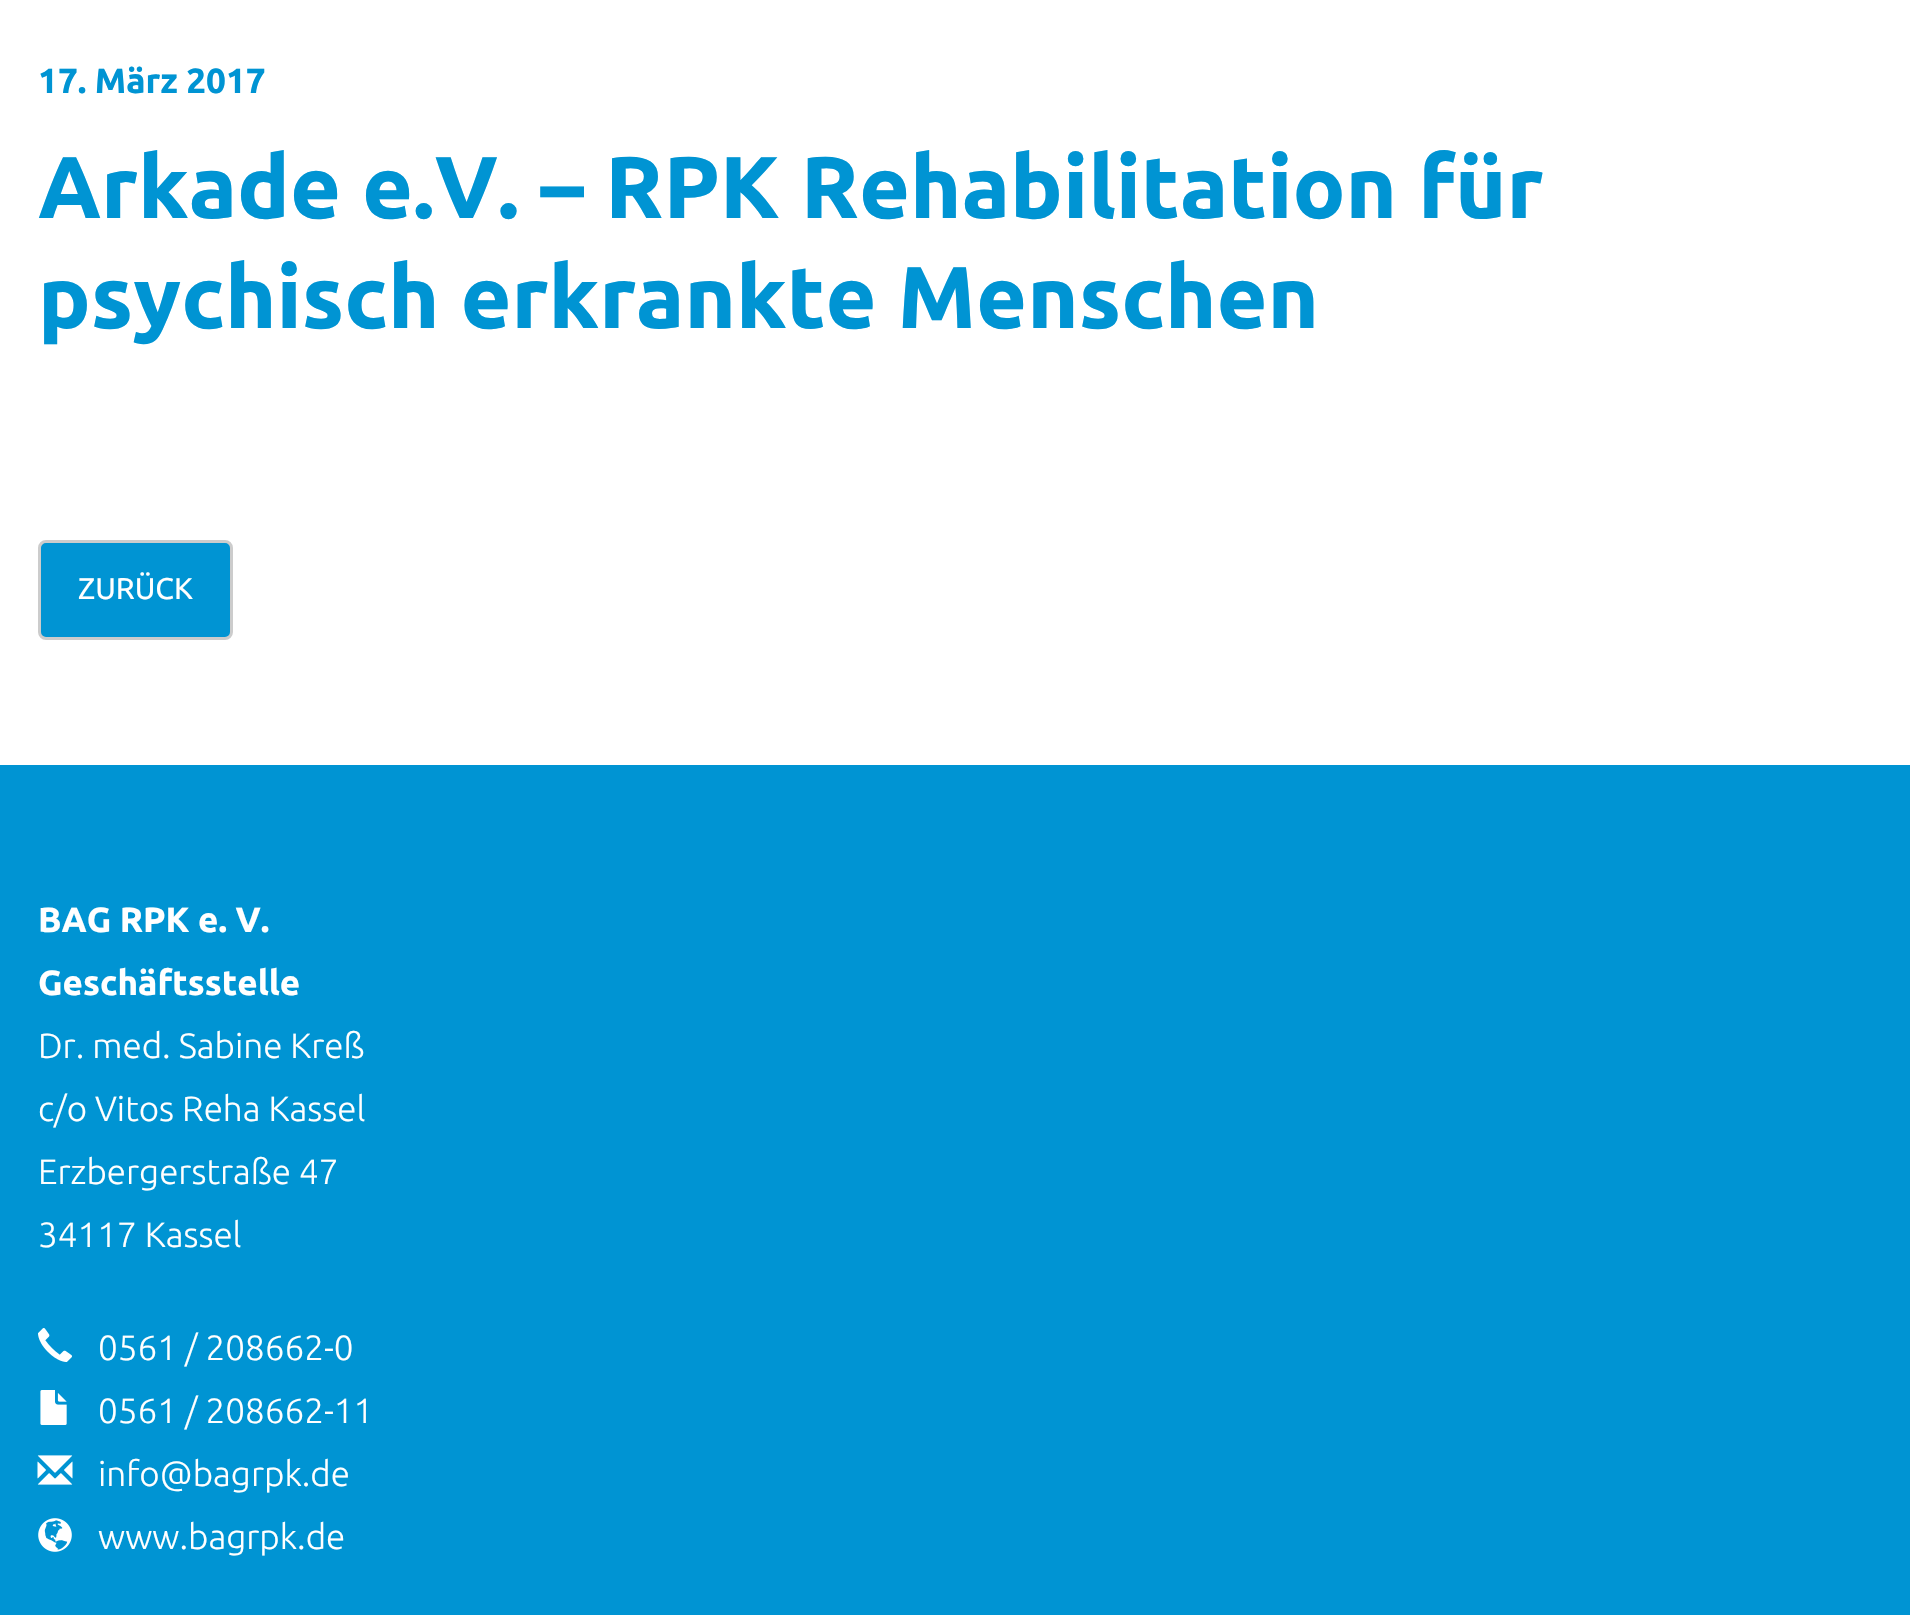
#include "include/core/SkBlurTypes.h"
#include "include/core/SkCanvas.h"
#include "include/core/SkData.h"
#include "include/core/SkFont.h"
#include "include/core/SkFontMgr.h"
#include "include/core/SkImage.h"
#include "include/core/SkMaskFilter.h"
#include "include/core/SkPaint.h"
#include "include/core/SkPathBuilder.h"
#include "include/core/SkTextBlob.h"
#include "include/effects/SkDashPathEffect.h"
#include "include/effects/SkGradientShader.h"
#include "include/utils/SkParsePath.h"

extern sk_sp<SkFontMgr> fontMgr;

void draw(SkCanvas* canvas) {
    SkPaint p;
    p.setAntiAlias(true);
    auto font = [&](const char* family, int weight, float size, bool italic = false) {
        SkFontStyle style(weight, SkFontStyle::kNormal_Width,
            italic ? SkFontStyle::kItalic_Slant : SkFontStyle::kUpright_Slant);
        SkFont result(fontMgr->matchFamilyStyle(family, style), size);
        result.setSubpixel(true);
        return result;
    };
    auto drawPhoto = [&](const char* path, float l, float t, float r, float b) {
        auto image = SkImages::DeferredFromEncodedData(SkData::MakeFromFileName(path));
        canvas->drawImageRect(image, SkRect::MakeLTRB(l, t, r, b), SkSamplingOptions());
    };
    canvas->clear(0xFFFFFFFF);
    auto font1 = font("Ubuntu", 700, 35);
    p.setColor(0xFF0094D3);
    canvas->drawString("17. März 2017", 38, 93, font1, p);
    auto font2 = font("Ubuntu", 700, 87.5f);
    canvas->drawString("Arkade e.V. – RPK Rehabilitation für", 38, 218, font2, p);
    canvas->drawString("psychisch erkrankte Menschen", 38, 328, font2, p);
    canvas->drawRoundRect(SkRect::MakeLTRB(39.5f, 541.5f, 231.5f, 638.5f), 6.5f, 6.5f, p);
    p.setStyle(SkPaint::kStroke_Style);
    p.setStrokeWidth(3);
    p.setColor(0xFFCCCCCC);
    canvas->drawRoundRect(SkRect::MakeLTRB(39.5f, 541.5f, 231.5f, 638.5f), 6.5f, 6.5f, p);
    auto font3 = font("Ubuntu", 400, 30);
    p.setStyle(SkPaint::kFill_Style);
    p.setColor(0xFFFFFFFF);
    canvas->drawString("ZURÜCK", 78, 599, font3, p);
    p.setColor(0xFF0094D3);
    canvas->drawRect(SkRect::MakeLTRB(0, 765, 1910, 1615), p);
    p.setColor(0xFFFFFFFF);
    canvas->drawString("BAG RPK e. V.", 38, 932, font1, p);
    canvas->drawString("Geschäftsstelle", 38, 995, font1, p);
    auto font4 = font("Ubuntu", 300, 35);
    {
        const struct { const char* s; float x, y; } items[] = {
            {"Dr. med. Sabine Kreß", 38, 1058},
            {"c/o Vitos Reha Kassel", 38, 1121},
            {"Erzbergerstraße 47", 38, 1184},
            {"34117 Kassel", 38, 1247},
        };
        for (auto [s, x, y] : items) {
            canvas->drawString(s, x, y, font4, p);
        }
    }
    drawPhoto("media/1.png", 38, 1328, 72, 1362);
    canvas->drawString("0561 / 208662-0", 98, 1360, font4, p);
    drawPhoto("media/2.png", 40, 1390, 67, 1425);
    canvas->drawString("0561 / 208662-11", 98, 1423, font4, p);
    drawPhoto("media/3.png", 37, 1455, 73, 1485);
    canvas->drawString("info@bagrpk.de", 98, 1486, font4, p);
    drawPhoto("media/4.png", 38, 1518, 72, 1552);
    canvas->drawString("www.bagrpk.de", 98, 1549, font4, p);
}
